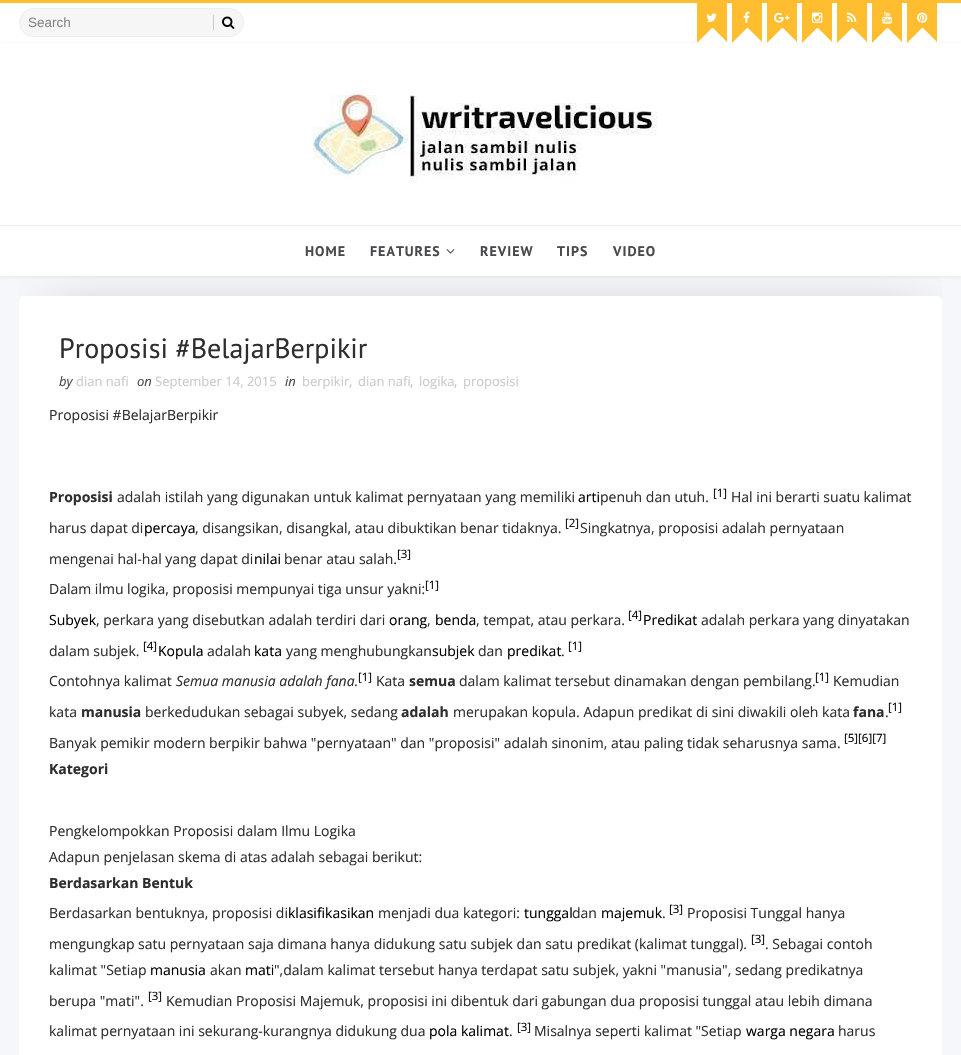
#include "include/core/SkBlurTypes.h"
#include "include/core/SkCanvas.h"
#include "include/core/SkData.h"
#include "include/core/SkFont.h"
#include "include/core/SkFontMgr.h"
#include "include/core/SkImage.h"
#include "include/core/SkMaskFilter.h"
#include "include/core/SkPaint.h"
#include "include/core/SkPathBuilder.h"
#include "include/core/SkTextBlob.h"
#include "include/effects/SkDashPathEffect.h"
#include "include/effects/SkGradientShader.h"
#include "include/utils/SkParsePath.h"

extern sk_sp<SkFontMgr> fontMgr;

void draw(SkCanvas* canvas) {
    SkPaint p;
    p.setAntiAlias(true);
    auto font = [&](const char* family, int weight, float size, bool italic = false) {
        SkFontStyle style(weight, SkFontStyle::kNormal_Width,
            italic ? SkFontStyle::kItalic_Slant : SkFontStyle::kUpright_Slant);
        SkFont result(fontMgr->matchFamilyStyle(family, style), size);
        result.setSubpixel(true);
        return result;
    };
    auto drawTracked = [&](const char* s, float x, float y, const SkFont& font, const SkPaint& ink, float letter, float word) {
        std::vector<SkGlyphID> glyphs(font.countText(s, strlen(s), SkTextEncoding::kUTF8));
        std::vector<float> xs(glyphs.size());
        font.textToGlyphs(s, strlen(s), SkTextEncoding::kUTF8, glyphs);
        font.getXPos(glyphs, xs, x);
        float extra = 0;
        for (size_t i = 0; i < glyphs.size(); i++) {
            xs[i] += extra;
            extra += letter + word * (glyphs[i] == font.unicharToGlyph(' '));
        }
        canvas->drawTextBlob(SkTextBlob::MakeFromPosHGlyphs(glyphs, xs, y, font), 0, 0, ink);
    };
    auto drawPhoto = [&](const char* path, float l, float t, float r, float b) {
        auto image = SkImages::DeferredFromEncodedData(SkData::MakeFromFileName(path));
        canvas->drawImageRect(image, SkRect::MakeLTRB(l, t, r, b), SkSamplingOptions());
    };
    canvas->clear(0xFFF6F7FB);
    p.setColor(0xFFFFFFFF);
    canvas->drawRect(SkRect::MakeLTRB(0, 3, 961, 43), p);
    p.setColor(0xFFFFBD2F);
    canvas->drawRect(SkRect::MakeLTRB(0, 0, 961, 3), p);
    p.setColor(0xFFF6F6F6);
    canvas->drawRoundRect(SkRect::MakeLTRB(19.5f, 8.5f, 243.5f, 36.5f), 14, 14, p);
    p.setStyle(SkPaint::kStroke_Style);
    p.setStrokeWidth(1);
    p.setColor(0xFFEEEEEE);
    canvas->drawRoundRect(SkRect::MakeLTRB(19.5f, 8.5f, 243.5f, 36.5f), 14, 14, p);
    p.setStyle(SkPaint::kFill_Style);
    p.setColor(0xFFCCCCCC);
    canvas->drawRect(SkRect::MakeLTRB(213, 15, 214, 30), p);
    auto font1 = font("Liberation Sans", 400, 13.5f);
    p.setColor(0xFF888888);
    canvas->drawString("Search", 28, 27, font1, p);
    drawPhoto("media/1.png", 222, 16, 235, 29);
    p.setColor(0x0F000000);
    p.setMaskFilter(SkMaskFilter::MakeBlur(kNormal_SkBlurStyle, 1.5f));
    canvas->drawRect(SkRect::MakeLTRB(0, 44, 961, 277), p);
    p.setMaskFilter(nullptr);
    p.setColor(0xFFFFBD2F);
    canvas->drawRect(SkRect::MakeLTRB(697, 3, 727, 43), p);
    drawPhoto("media/2.png", 706, 13, 717, 22);
    p.setColor(0xFFFFFFFF);
    canvas->drawPath(SkPathBuilder().moveTo(728, 43).lineTo(697, 43).lineTo(712, 28).lineTo(713, 28).close().detach(), p);
    p.setColor(0xFFFFBD2F);
    canvas->drawRect(SkRect::MakeLTRB(732, 3, 762, 43), p);
    drawPhoto("media/3.png", 743, 11, 750, 23);
    p.setColor(0xFFFFFFFF);
    canvas->drawPath(SkPathBuilder().moveTo(763, 43).lineTo(732, 43).lineTo(747, 28).lineTo(748, 28).close().detach(), p);
    p.setColor(0xFFFFBD2F);
    canvas->drawRect(SkRect::MakeLTRB(767, 3, 797, 43), p);
    drawPhoto("media/4.png", 774, 12, 790, 23);
    p.setColor(0xFFFFFFFF);
    canvas->drawPath(SkPathBuilder().moveTo(798, 43).lineTo(767, 43).lineTo(782, 28).lineTo(783, 28).close().detach(), p);
    p.setColor(0xFFFFBD2F);
    canvas->drawRect(SkRect::MakeLTRB(802, 3, 832, 43), p);
    drawPhoto("media/5.png", 812, 12, 823, 23);
    p.setColor(0xFFFFFFFF);
    canvas->drawPath(SkPathBuilder().moveTo(833, 43).lineTo(802, 43).lineTo(817, 28).lineTo(818, 28).close().detach(), p);
    p.setColor(0xFFFFBD2F);
    canvas->drawRect(SkRect::MakeLTRB(837, 3, 867, 43), p);
    drawPhoto("media/6.png", 847, 12, 857, 22);
    p.setColor(0xFFFFFFFF);
    canvas->drawPath(SkPathBuilder().moveTo(868, 43).lineTo(837, 43).lineTo(852, 28).lineTo(853, 28).close().detach(), p);
    p.setColor(0xFFFFBD2F);
    canvas->drawRect(SkRect::MakeLTRB(872, 3, 902, 43), p);
    drawPhoto("media/7.png", 882, 11, 893, 24);
    p.setColor(0xFFFFFFFF);
    canvas->drawPath(SkPathBuilder().moveTo(903, 43).lineTo(872, 43).lineTo(887, 28).lineTo(888, 28).close().detach(), p);
    p.setColor(0xFFFFBD2F);
    canvas->drawRect(SkRect::MakeLTRB(907, 3, 937, 43), p);
    drawPhoto("media/8.png", 917, 12, 928, 23);
    p.setColor(0xFFFFFFFF);
    canvas->drawPath(SkPathBuilder().moveTo(938, 43).lineTo(907, 43).lineTo(922, 28).lineTo(923, 28).close().detach(), p);
    canvas->drawRect(SkRect::MakeLTRB(0, 43, 961, 276), p);
    drawPhoto("media/9.png", 311, 87, 657, 183);
    p.setColor(0xFFEFEFEF);
    canvas->drawRect(SkRect::MakeLTRB(0, 225, 961, 226), p);
    canvas->save();
    canvas->clipRect(SkRect::MakeLTRB(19, 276, 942, 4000));
    p.setColor(0x80000000);
    p.setMaskFilter(SkMaskFilter::MakeBlur(kNormal_SkBlurStyle, 27.5f));
    canvas->drawRect(SkRect::MakeLTRB(51, 328, 920, 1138), p);
    p.setMaskFilter(nullptr);
    canvas->restore();
    auto font2 = font("PT Sans", 700, 14);
    p.setColor(0xFF48494D);
    drawTracked("HOME", 305, 256, font2, p, 1, 0);
    drawTracked("FEATURES", 370, 256, font2, p, 1, 0);
    drawPhoto("media/10.png", 446, 249, 455, 254);
    {
        const struct { const char* s; float x, y; } items[] = {
            {"REVIEW", 480, 256},
            {"TIPS", 557, 256},
            {"VIDEO", 613, 256},
        };
        for (auto [s, x, y] : items) {
            drawTracked(s, x, y, font2, p, 1, 0);
        }
    }
    p.setColor(0xFFFFFFFF);
    canvas->drawRoundRect(SkRect::MakeLTRB(19, 296, 942, 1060), 5, 5, p);
    auto font3 = font("PT Sans", 400, 28);
    p.setColor(0xFF2E2E2E);
    canvas->drawString("Proposisi #BelajarBerpikir", 59, 358, font3, p);
    auto font4 = font("Open Sans", 400, 13, true);
    p.setColor(0xFF48494D);
    canvas->drawString("by", 59, 386, font4, p);
    auto font5 = font("Open Sans", 400, 13);
    p.setColor(0xFFCBCBCB);
    canvas->drawString("dian nafi", 76, 386, font5, p);
    p.setColor(0xFF48494D);
    canvas->drawString("on", 137, 386, font4, p);
    p.setColor(0xFFCBCBCB);
    canvas->drawString("September 14, 2015", 155, 386, font5, p);
    p.setColor(0xFF48494D);
    canvas->drawString("in", 285, 386, font4, p);
    p.setColor(0xFFCBCBCB);
    canvas->drawString("berpikir", 302, 386, font5, p);
    p.setColor(0xFFBDBDBD);
    canvas->drawString(",", 349, 386, font5, p);
    p.setColor(0xFFCBCBCB);
    canvas->drawString("dian nafi", 358, 386, font5, p);
    p.setColor(0xFFBDBDBD);
    canvas->drawString(",", 410, 386, font5, p);
    p.setColor(0xFFCBCBCB);
    canvas->drawString("logika", 419, 386, font5, p);
    p.setColor(0xFFBDBDBD);
    canvas->drawString(",", 454, 386, font5, p);
    p.setColor(0xFFCBCBCB);
    canvas->drawString("proposisi", 463, 386, font5, p);
    auto font6 = font("Open Sans", 400, 14);
    p.setColor(0xFF2E2E2E);
    canvas->drawString("Proposisi #BelajarBerpikir", 49, 420, font6, p);
    auto font7 = font("Open Sans", 700, 14);
    canvas->drawString("Proposisi", 49, 502, font7, p);
    canvas->drawString("adalah istilah yang digunakan untuk kalimat pernyataan yang memiliki", 117, 502, font6, p);
    p.setColor(0xFF000000);
    canvas->drawString("arti", 578, 502, font6, p);
    p.setColor(0xFF2E2E2E);
    canvas->drawString("penuh dan utuh.", 600, 502, font6, p);
    auto font8 = font("Open Sans", 400, 11.5f);
    p.setColor(0xFF000000);
    canvas->drawString("[1]", 713, 497, font8, p);
    p.setColor(0xFF2E2E2E);
    canvas->drawString("Hal ini berarti suatu kalimat", 731, 502, font6, p);
    canvas->drawString("harus dapat di", 49, 533, font6, p);
    p.setColor(0xFF000000);
    canvas->drawString("percaya", 144, 533, font6, p);
    p.setColor(0xFF2E2E2E);
    canvas->drawString(", disangsikan, disangkal, atau dibuktikan benar tidaknya.", 195, 533, font6, p);
    p.setColor(0xFF000000);
    canvas->drawString("[2]", 565, 527, font8, p);
    p.setColor(0xFF2E2E2E);
    canvas->drawString("Singkatnya, proposisi adalah pernyataan", 580, 533, font6, p);
    canvas->drawString("mengenai hal-hal yang dapat di", 49, 564, font6, p);
    p.setColor(0xFF000000);
    canvas->drawString("nilai", 254, 564, font6, p);
    p.setColor(0xFF2E2E2E);
    canvas->drawString("benar atau salah.", 284, 564, font6, p);
    p.setColor(0xFF000000);
    canvas->drawString("[3]", 397, 558, font8, p);
    p.setColor(0xFF2E2E2E);
    canvas->drawString("Dalam ilmu logika, proposisi mempunyai tiga unsur yakni:", 49, 594, font6, p);
    p.setColor(0xFF000000);
    canvas->drawString("[1]", 425, 589, font8, p);
    canvas->drawString("Subyek", 49, 625, font6, p);
    p.setColor(0xFF2E2E2E);
    canvas->drawString(", perkara yang disebutkan adalah terdiri dari", 96, 625, font6, p);
    p.setColor(0xFF000000);
    canvas->drawString("orang", 389, 625, font6, p);
    p.setColor(0xFF2E2E2E);
    canvas->drawString(",", 427, 625, font6, p);
    p.setColor(0xFF000000);
    canvas->drawString("benda", 435, 625, font6, p);
    p.setColor(0xFF2E2E2E);
    canvas->drawString(", tempat, atau perkara.", 476, 625, font6, p);
    p.setColor(0xFF000000);
    canvas->drawString("[4]", 628, 619, font8, p);
    canvas->drawString("Predikat", 643, 625, font6, p);
    p.setColor(0xFF2E2E2E);
    canvas->drawString("adalah perkara yang dinyatakan", 701, 625, font6, p);
    canvas->drawString("dalam subjek.", 49, 656, font6, p);
    p.setColor(0xFF000000);
    canvas->drawString("[4]", 143, 650, font8, p);
    canvas->drawString("Kopula", 158, 656, font6, p);
    p.setColor(0xFF2E2E2E);
    canvas->drawString("adalah", 207, 656, font6, p);
    p.setColor(0xFF000000);
    canvas->drawString("kata", 254, 656, font6, p);
    p.setColor(0xFF2E2E2E);
    canvas->drawString("yang menghubungkan", 286, 656, font6, p);
    p.setColor(0xFF000000);
    canvas->drawString("subjek", 432, 656, font6, p);
    p.setColor(0xFF2E2E2E);
    canvas->drawString("dan", 478, 656, font6, p);
    p.setColor(0xFF000000);
    canvas->drawString("predikat", 507, 656, font6, p);
    p.setColor(0xFF2E2E2E);
    canvas->drawString(".", 561, 656, font6, p);
    p.setColor(0xFF000000);
    canvas->drawString("[1]", 568, 650, font8, p);
    p.setColor(0xFF2E2E2E);
    canvas->drawString("Contohnya kalimat", 49, 686, font6, p);
    auto font9 = font("Open Sans", 400, 14, true);
    canvas->drawString("Semua manusia adalah fana", 176, 686, font9, p);
    canvas->drawString(".", 354, 686, font6, p);
    p.setColor(0xFF000000);
    canvas->drawString("[1]", 358, 681, font8, p);
    p.setColor(0xFF2E2E2E);
    canvas->drawString("Kata", 376, 686, font6, p);
    canvas->drawString("semua", 409, 686, font7, p);
    canvas->drawString("dalam kalimat tersebut dinamakan dengan pembilang.", 459, 686, font6, p);
    p.setColor(0xFF000000);
    canvas->drawString("[1]", 815, 681, font8, p);
    p.setColor(0xFF2E2E2E);
    canvas->drawString("Kemudian", 833, 686, font6, p);
    canvas->drawString("kata", 49, 717, font6, p);
    canvas->drawString("manusia", 81, 717, font7, p);
    canvas->drawString("berkedudukan sebagai subyek, sedang", 145, 717, font6, p);
    canvas->drawString("adalah", 401, 717, font7, p);
    canvas->drawString("merupakan kopula. Adapun predikat di sini diwakili oleh kata", 453, 717, font6, p);
    canvas->drawString("fana", 853, 717, font7, p);
    canvas->drawString(".", 885, 717, font6, p);
    p.setColor(0xFF000000);
    canvas->drawString("[1]", 888, 711, font8, p);
    p.setColor(0xFF2E2E2E);
    canvas->drawString("Banyak pemikir modern berpikir bahwa \"pernyataan\" dan \"proposisi\" adalah sinonim, atau paling tidak seharusnya sama.", 49, 748, font6, p);
    p.setColor(0xFF000000);
    canvas->drawString("[5][6][7]", 844, 742, font8, p);
    p.setColor(0xFF2E2E2E);
    canvas->drawString("Kategori", 49, 774, font7, p);
    canvas->drawString("Pengkelompokkan Proposisi dalam Ilmu Logika", 49, 836, font6, p);
    canvas->drawString("Adapun penjelasan skema di atas adalah sebagai berikut:", 49, 862, font6, p);
    canvas->drawString("Berdasarkan Bentuk", 49, 888, font7, p);
    canvas->drawString("Berdasarkan bentuknya, proposisi di", 49, 918, font6, p);
    p.setColor(0xFF000000);
    canvas->drawString("klasifikasikan", 288, 918, font6, p);
    p.setColor(0xFF2E2E2E);
    canvas->drawString("menjadi dua kategori:", 378, 918, font6, p);
    p.setColor(0xFF000000);
    canvas->drawString("tunggal", 524, 918, font6, p);
    p.setColor(0xFF2E2E2E);
    canvas->drawString("dan", 572, 918, font6, p);
    p.setColor(0xFF000000);
    canvas->drawString("majemuk", 601, 918, font6, p);
    p.setColor(0xFF2E2E2E);
    canvas->drawString(".", 662, 918, font6, p);
    p.setColor(0xFF000000);
    canvas->drawString("[3]", 669, 913, font8, p);
    p.setColor(0xFF2E2E2E);
    canvas->drawString("Proposisi Tunggal hanya", 687, 918, font6, p);
    canvas->drawString("mengungkap satu pernyataan saja dimana hanya didukung satu subjek dan satu predikat (kalimat tunggal).", 49, 949, font6, p);
    p.setColor(0xFF000000);
    canvas->drawString("[3]", 751, 943, font8, p);
    p.setColor(0xFF2E2E2E);
    canvas->drawString(". Sebagai contoh", 765, 949, font6, p);
    canvas->drawString("kalimat \"Setiap", 49, 975, font6, p);
    p.setColor(0xFF000000);
    canvas->drawString("manusia", 150, 975, font6, p);
    p.setColor(0xFF2E2E2E);
    canvas->drawString("akan", 210, 975, font6, p);
    p.setColor(0xFF000000);
    canvas->drawString("mati", 245, 975, font6, p);
    p.setColor(0xFF2E2E2E);
    canvas->drawString("\",dalam kalimat tersebut hanya terdapat satu subjek, yakni \"manusia\", sedang predikatnya", 274, 975, font6, p);
    canvas->drawString("berupa \"mati\".", 49, 1006, font6, p);
    p.setColor(0xFF000000);
    canvas->drawString("[3]", 148, 1000, font8, p);
    p.setColor(0xFF2E2E2E);
    canvas->drawString("Kemudian Proposisi Majemuk, proposisi ini dibentuk dari gabungan dua proposisi tunggal atau lebih dimana", 166, 1006, font6, p);
    canvas->drawString("kalimat pernyataan ini sekurang-kurangnya didukung dua", 49, 1036, font6, p);
    p.setColor(0xFF000000);
    canvas->drawString("pola kalimat", 429, 1036, font6, p);
    p.setColor(0xFF2E2E2E);
    canvas->drawString(".", 509, 1036, font6, p);
    p.setColor(0xFF000000);
    canvas->drawString("[3]", 517, 1031, font8, p);
    p.setColor(0xFF2E2E2E);
    canvas->drawString("Misalnya seperti kalimat \"Setiap", 534, 1036, font6, p);
    p.setColor(0xFF000000);
    canvas->drawString("warga negara", 746, 1036, font6, p);
    p.setColor(0xFF2E2E2E);
    canvas->drawString("harus", 838, 1036, font6, p);
}
